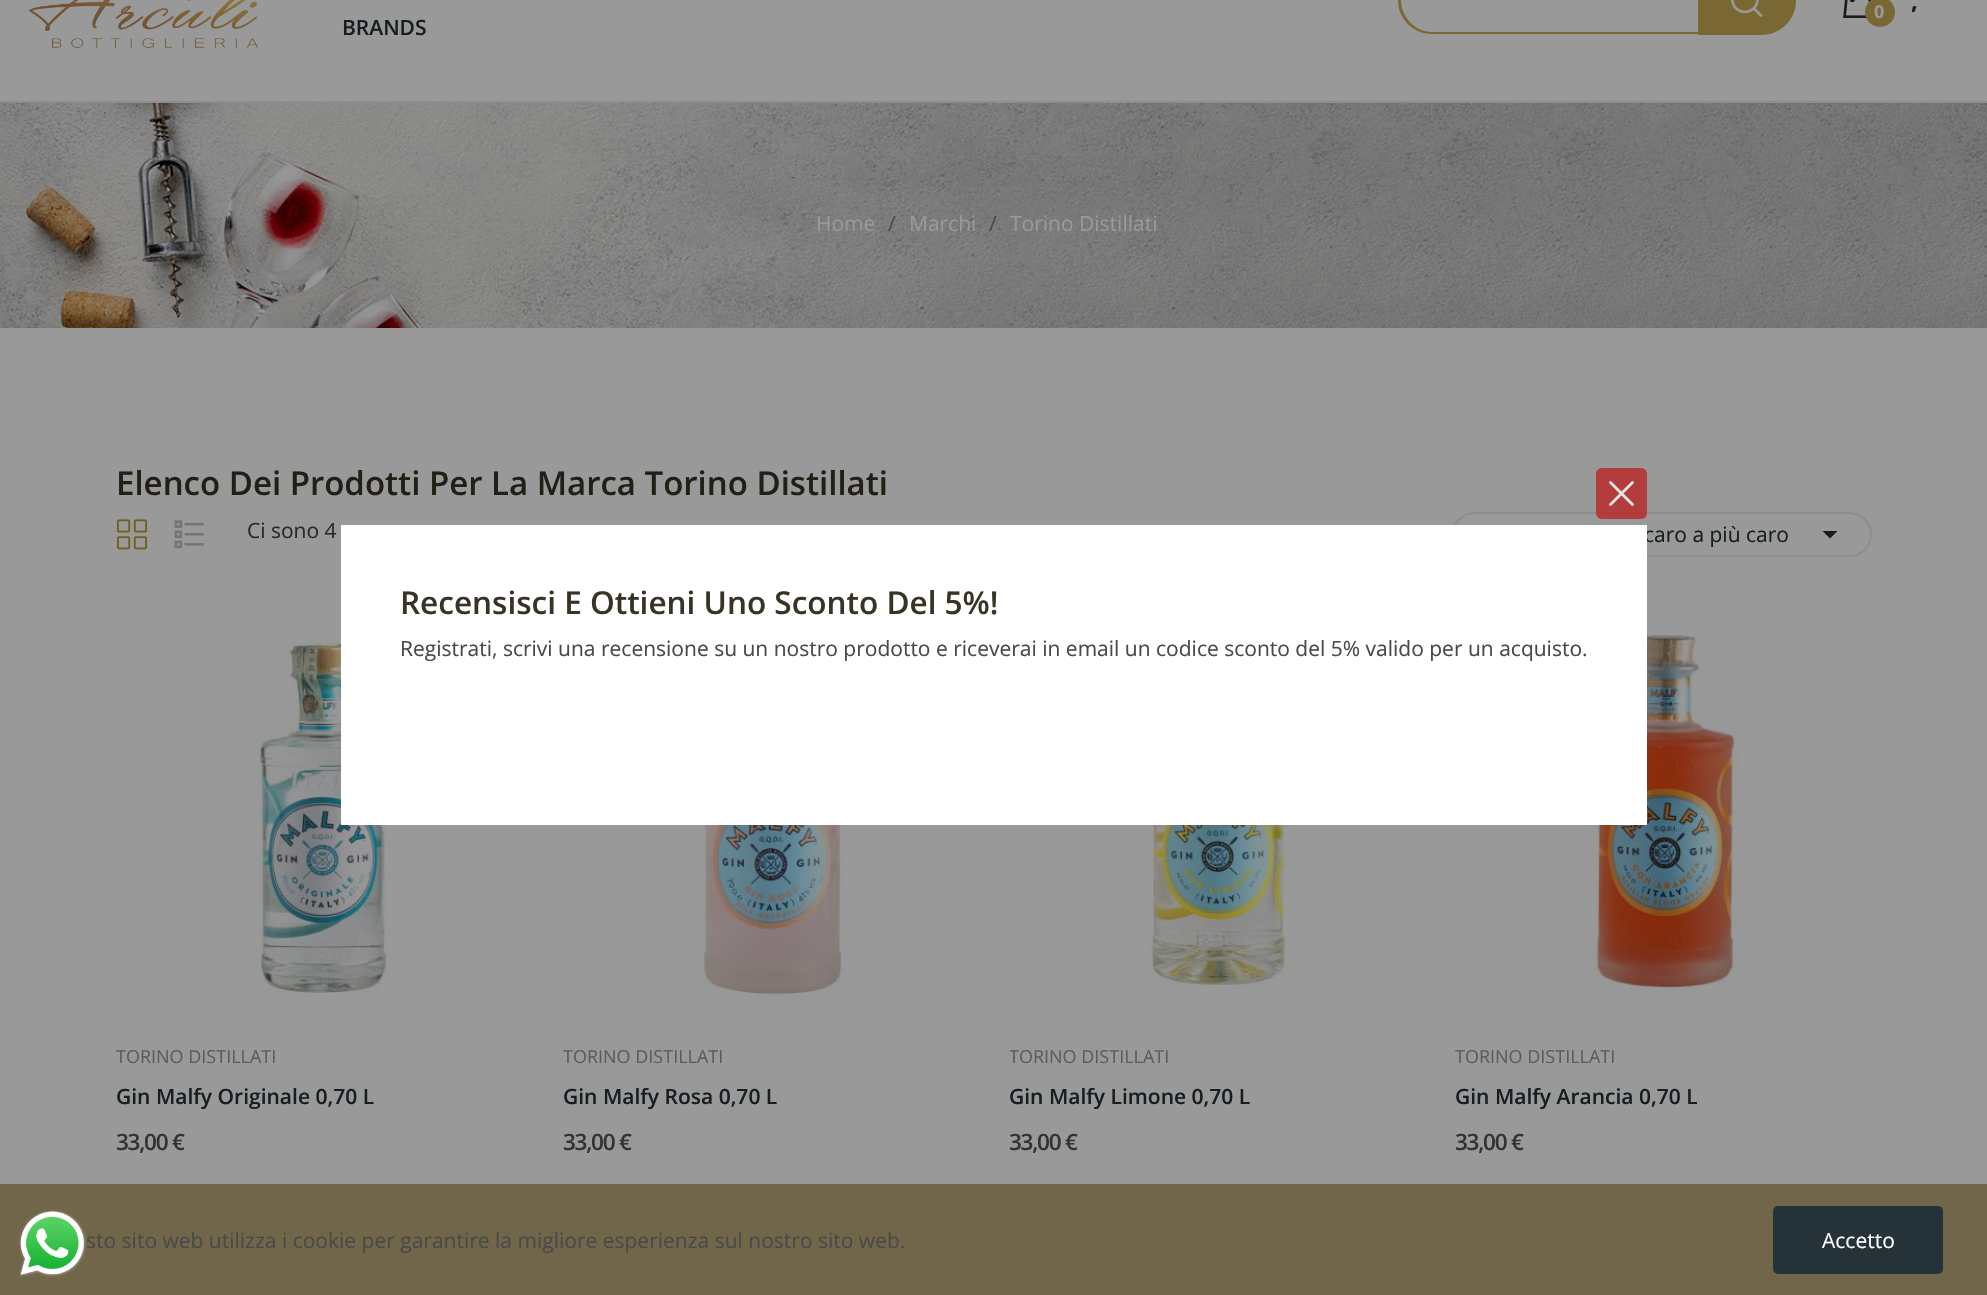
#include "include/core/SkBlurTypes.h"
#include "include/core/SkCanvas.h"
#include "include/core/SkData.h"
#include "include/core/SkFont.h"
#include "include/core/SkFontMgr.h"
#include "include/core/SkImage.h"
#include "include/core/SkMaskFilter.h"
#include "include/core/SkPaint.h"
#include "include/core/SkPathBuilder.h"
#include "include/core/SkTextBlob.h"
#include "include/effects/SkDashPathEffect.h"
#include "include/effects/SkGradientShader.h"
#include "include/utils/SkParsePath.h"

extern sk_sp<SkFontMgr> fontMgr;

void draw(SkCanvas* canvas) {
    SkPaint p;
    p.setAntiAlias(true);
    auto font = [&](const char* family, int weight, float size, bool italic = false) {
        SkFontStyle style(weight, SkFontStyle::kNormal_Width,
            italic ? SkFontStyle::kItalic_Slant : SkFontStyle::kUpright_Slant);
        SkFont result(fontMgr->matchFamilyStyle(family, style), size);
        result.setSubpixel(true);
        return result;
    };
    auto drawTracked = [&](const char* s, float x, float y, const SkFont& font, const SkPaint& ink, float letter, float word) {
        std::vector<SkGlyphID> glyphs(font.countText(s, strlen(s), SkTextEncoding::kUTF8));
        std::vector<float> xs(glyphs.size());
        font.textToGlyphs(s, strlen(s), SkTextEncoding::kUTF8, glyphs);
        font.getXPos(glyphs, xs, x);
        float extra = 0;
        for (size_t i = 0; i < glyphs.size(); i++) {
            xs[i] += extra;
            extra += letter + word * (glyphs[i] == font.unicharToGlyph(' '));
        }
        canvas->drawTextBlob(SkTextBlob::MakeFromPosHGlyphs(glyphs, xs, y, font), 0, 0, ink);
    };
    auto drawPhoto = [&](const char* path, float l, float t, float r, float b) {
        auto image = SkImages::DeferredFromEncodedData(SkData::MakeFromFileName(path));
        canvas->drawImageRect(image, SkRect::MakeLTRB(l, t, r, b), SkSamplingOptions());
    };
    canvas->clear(0xFF999999);
    p.setColor(0xFF8D8D8D);
    canvas->drawRect(SkRect::MakeLTRB(0, 101, 1987, 103), p);
    drawPhoto("media/1.png", 29, 0, 268, 48);
    p.setColor(0xFF796834);
    canvas->drawPath(SkPathBuilder(SkPathFillType::kEvenOdd).moveTo(1432, -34).lineTo(1698, -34).lineTo(1698, 34).lineTo(1432, 34).cubicTo(1413, 34, 1398, 19, 1398, 0).cubicTo(1398, -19, 1413, -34, 1432, -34).close().moveTo(1432, -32).lineTo(1698, -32).lineTo(1698, 32).lineTo(1432, 32).cubicTo(1415, 32, 1401, 17, 1401, 0).cubicTo(1401, -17, 1415, -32, 1432, -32).close().detach(), p);
    canvas->drawPath(SkPathBuilder().moveTo(1698, -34).lineTo(1761.5f, -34).cubicTo(1780.5f, -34, 1796, -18.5f, 1796, 0.5f).cubicTo(1796, 19.5f, 1780.5f, 35, 1761.5f, 35).lineTo(1698, 35).close().detach(), p);
    drawPhoto("media/2.png", 1731, 0, 1763, 17);
    drawPhoto("media/3.png", 1843, 0, 1871, 18);
    canvas->drawCircle(1880, 12, 15, p);
    auto font1 = font("Open Sans", 700, 18);
    p.setColor(0xFF999999);
    canvas->drawString("0", 1874, 18, font1, p);
    auto font2 = font("Open Sans", 700, 24);
    p.setColor(0xFF161E21);
    canvas->drawString(",", 1911, 9, font2, p);
    auto font3 = font("Open Sans", 600, 21);
    canvas->drawString("BRANDS", 342, 35, font3, p);
    drawPhoto("media/4.png", 0, 103, 1987, 328);
    auto font4 = font("Open Sans", 400, 21);
    p.setColor(0xFF999999);
    canvas->drawString("Home", 816, 231, font4, p);
    p.setColor(0xFF494949);
    canvas->drawString("/", 888, 231, font4, p);
    p.setColor(0xFF999999);
    canvas->drawString("Marchi", 909, 231, font4, p);
    p.setColor(0xFF494949);
    canvas->drawString("/", 989, 231, font4, p);
    p.setColor(0xFF999999);
    canvas->drawString("Torino Distillati", 1010, 231, font4, p);
    auto font5 = font("Open Sans", 600, 33);
    p.setColor(0xFF211F16);
    canvas->drawString("Elenco Dei Prodotti Per La Marca Torino Distillati", 116, 495, font5, p);
    drawPhoto("media/5.png", 117, 519, 147, 550);
    drawPhoto("media/6.png", 174, 520, 204, 549);
    p.setColor(0xFF292929);
    canvas->drawString("Ci sono 4", 247, 538, font4, p);
    p.setStyle(SkPaint::kStroke_Style);
    p.setStrokeWidth(2);
    p.setColor(0xFF8D8D8D);
    canvas->drawRoundRect(SkRect::MakeLTRB(1453, 513, 1871, 556), 21.5f, 21.5f, p);
    p.setStyle(SkPaint::kFill_Style);
    p.setColor(0xFF161E21);
    canvas->drawString("caro a più caro", 1644, 542, font4, p);
    canvas->drawPath(SkPathBuilder().moveTo(1822.5f, 531).lineTo(1837.5f, 531).lineTo(1830, 538.5f).close().detach(), p);
    drawPhoto("media/7.png", 250, 635, 391, 994);
    auto font6 = font("Open Sans", 400, 18);
    p.setColor(0xFF5C5C5C);
    canvas->drawString("TORINO DISTILLATI", 116, 1063, font6, p);
    p.setColor(0xFF161E21);
    canvas->drawString("Gin Malfy Originale 0,70 L", 116, 1104, font3, p);
    auto font7 = font("Open Sans", 600, 22.5f);
    p.setColor(0xFF333333);
    drawTracked("33,00 €", 116, 1150, font7, p, -1.25f, 0);
    drawPhoto("media/8.png", 702, 825, 846, 1000);
    p.setColor(0xFF5C5C5C);
    canvas->drawString("TORINO DISTILLATI", 563, 1063, font6, p);
    p.setColor(0xFF161E21);
    canvas->drawString("Gin Malfy Rosa 0,70 L", 563, 1104, font3, p);
    p.setColor(0xFF333333);
    drawTracked("33,00 €", 563, 1150, font7, p, -1.25f, 0);
    drawPhoto("media/9.png", 1142, 825, 1293, 986);
    canvas->save();
    canvas->clipPath(SkPathBuilder().moveTo(1015, 602).lineTo(1420, 602).cubicTo(1423, 602, 1425, 604, 1425, 607).lineTo(1425, 1153).cubicTo(1425, 1156, 1423, 1158, 1420, 1158).lineTo(1015, 1158).cubicTo(1012, 1158, 1010, 1156, 1010, 1153).lineTo(1010, 607).cubicTo(1010, 604, 1012, 602, 1015, 602).close().detach(), true);
    p.setColor(0xFF5C5C5C);
    canvas->drawString("TORINO DISTILLATI", 1009, 1063, font6, p);
    canvas->restore();
    p.setColor(0xFF161E21);
    canvas->drawString("Gin Malfy Limone 0,70 L", 1009, 1104, font3, p);
    canvas->save();
    canvas->clipPath(SkPathBuilder().moveTo(1015, 602).lineTo(1420, 602).cubicTo(1423, 602, 1425, 604, 1425, 607).lineTo(1425, 1153).cubicTo(1425, 1156, 1423, 1158, 1420, 1158).lineTo(1015, 1158).cubicTo(1012, 1158, 1010, 1156, 1010, 1153).lineTo(1010, 607).cubicTo(1010, 604, 1012, 602, 1015, 602).close().detach(), true);
    p.setColor(0xFF333333);
    drawTracked("33,00 €", 1009, 1150, font7, p, -1.25f, 0);
    canvas->restore();
    drawPhoto("media/10.png", 1588, 634, 1739, 1001);
    p.setColor(0xFF5C5C5C);
    canvas->drawString("TORINO DISTILLATI", 1455, 1063, font6, p);
    p.setColor(0xFF161E21);
    canvas->drawString("Gin Malfy Arancia 0,70 L", 1455, 1104, font3, p);
    p.setColor(0xFF333333);
    drawTracked("33,00 €", 1455, 1150, font7, p, -1.25f, 0);
    p.setColor(0xFFFFFFFF);
    canvas->drawRect(SkRect::MakeLTRB(341, 525, 1647, 825), p);
    p.setColor(0xBFBB1D1D);
    canvas->drawRoundRect(SkRect::MakeLTRB(1596, 468, 1647, 519), 6, 6, p);
    p.setStyle(SkPaint::kStroke_Style);
    p.setStrokeWidth(2.8f);
    p.setStrokeCap(SkPaint::kRound_Cap);
    p.setStrokeJoin(SkPaint::kRound_Join);
    p.setColor(0xFFE6E6E6);
    canvas->drawPath(SkPathBuilder().moveTo(1632.5f, 504.5f).lineTo(1610.5f, 482.5f).moveTo(1632.5f, 482.5f).lineTo(1610.5f, 504.5f).detach(), p);
    auto font8 = font("Open Sans", 600, 31.5f);
    p.setStyle(SkPaint::kFill_Style);
    p.setColor(0xFF373425);
    canvas->drawString("Recensisci E Ottieni Uno Sconto Del 5%!", 400, 614, font8, p);
    p.setColor(0xFF494949);
    canvas->drawString("Registrati, scrivi una recensione su un nostro prodotto e riceverai in email un codice sconto del 5% valido per un acquisto.", 400, 656, font4, p);
    p.setColor(0xFF71664A);
    canvas->drawRect(SkRect::MakeLTRB(0, 1184, 1987, 1295), p);
    drawPhoto("media/11.png", 19, 1209, 87, 1277);
    p.setColor(0xFF494949);
    canvas->drawString("sto sito web utilizza i cookie per garantire la migliore esperienza sul nostro sito web.", 86, 1248, font4, p);
    p.setColor(0xFF253237);
    canvas->drawRoundRect(SkRect::MakeLTRB(1774.5f, 1207.5f, 1941.5f, 1272.5f), 3.5f, 3.5f, p);
    p.setStyle(SkPaint::kStroke_Style);
    p.setStrokeWidth(3);
    p.setStrokeCap(SkPaint::kButt_Cap);
    p.setStrokeJoin(SkPaint::kMiter_Join);
    canvas->drawRoundRect(SkRect::MakeLTRB(1774.5f, 1207.5f, 1941.5f, 1272.5f), 3.5f, 3.5f, p);
    p.setStyle(SkPaint::kFill_Style);
    p.setColor(0xFFFFFFFF);
    canvas->drawString("Accetto", 1822, 1248, font4, p);
}
